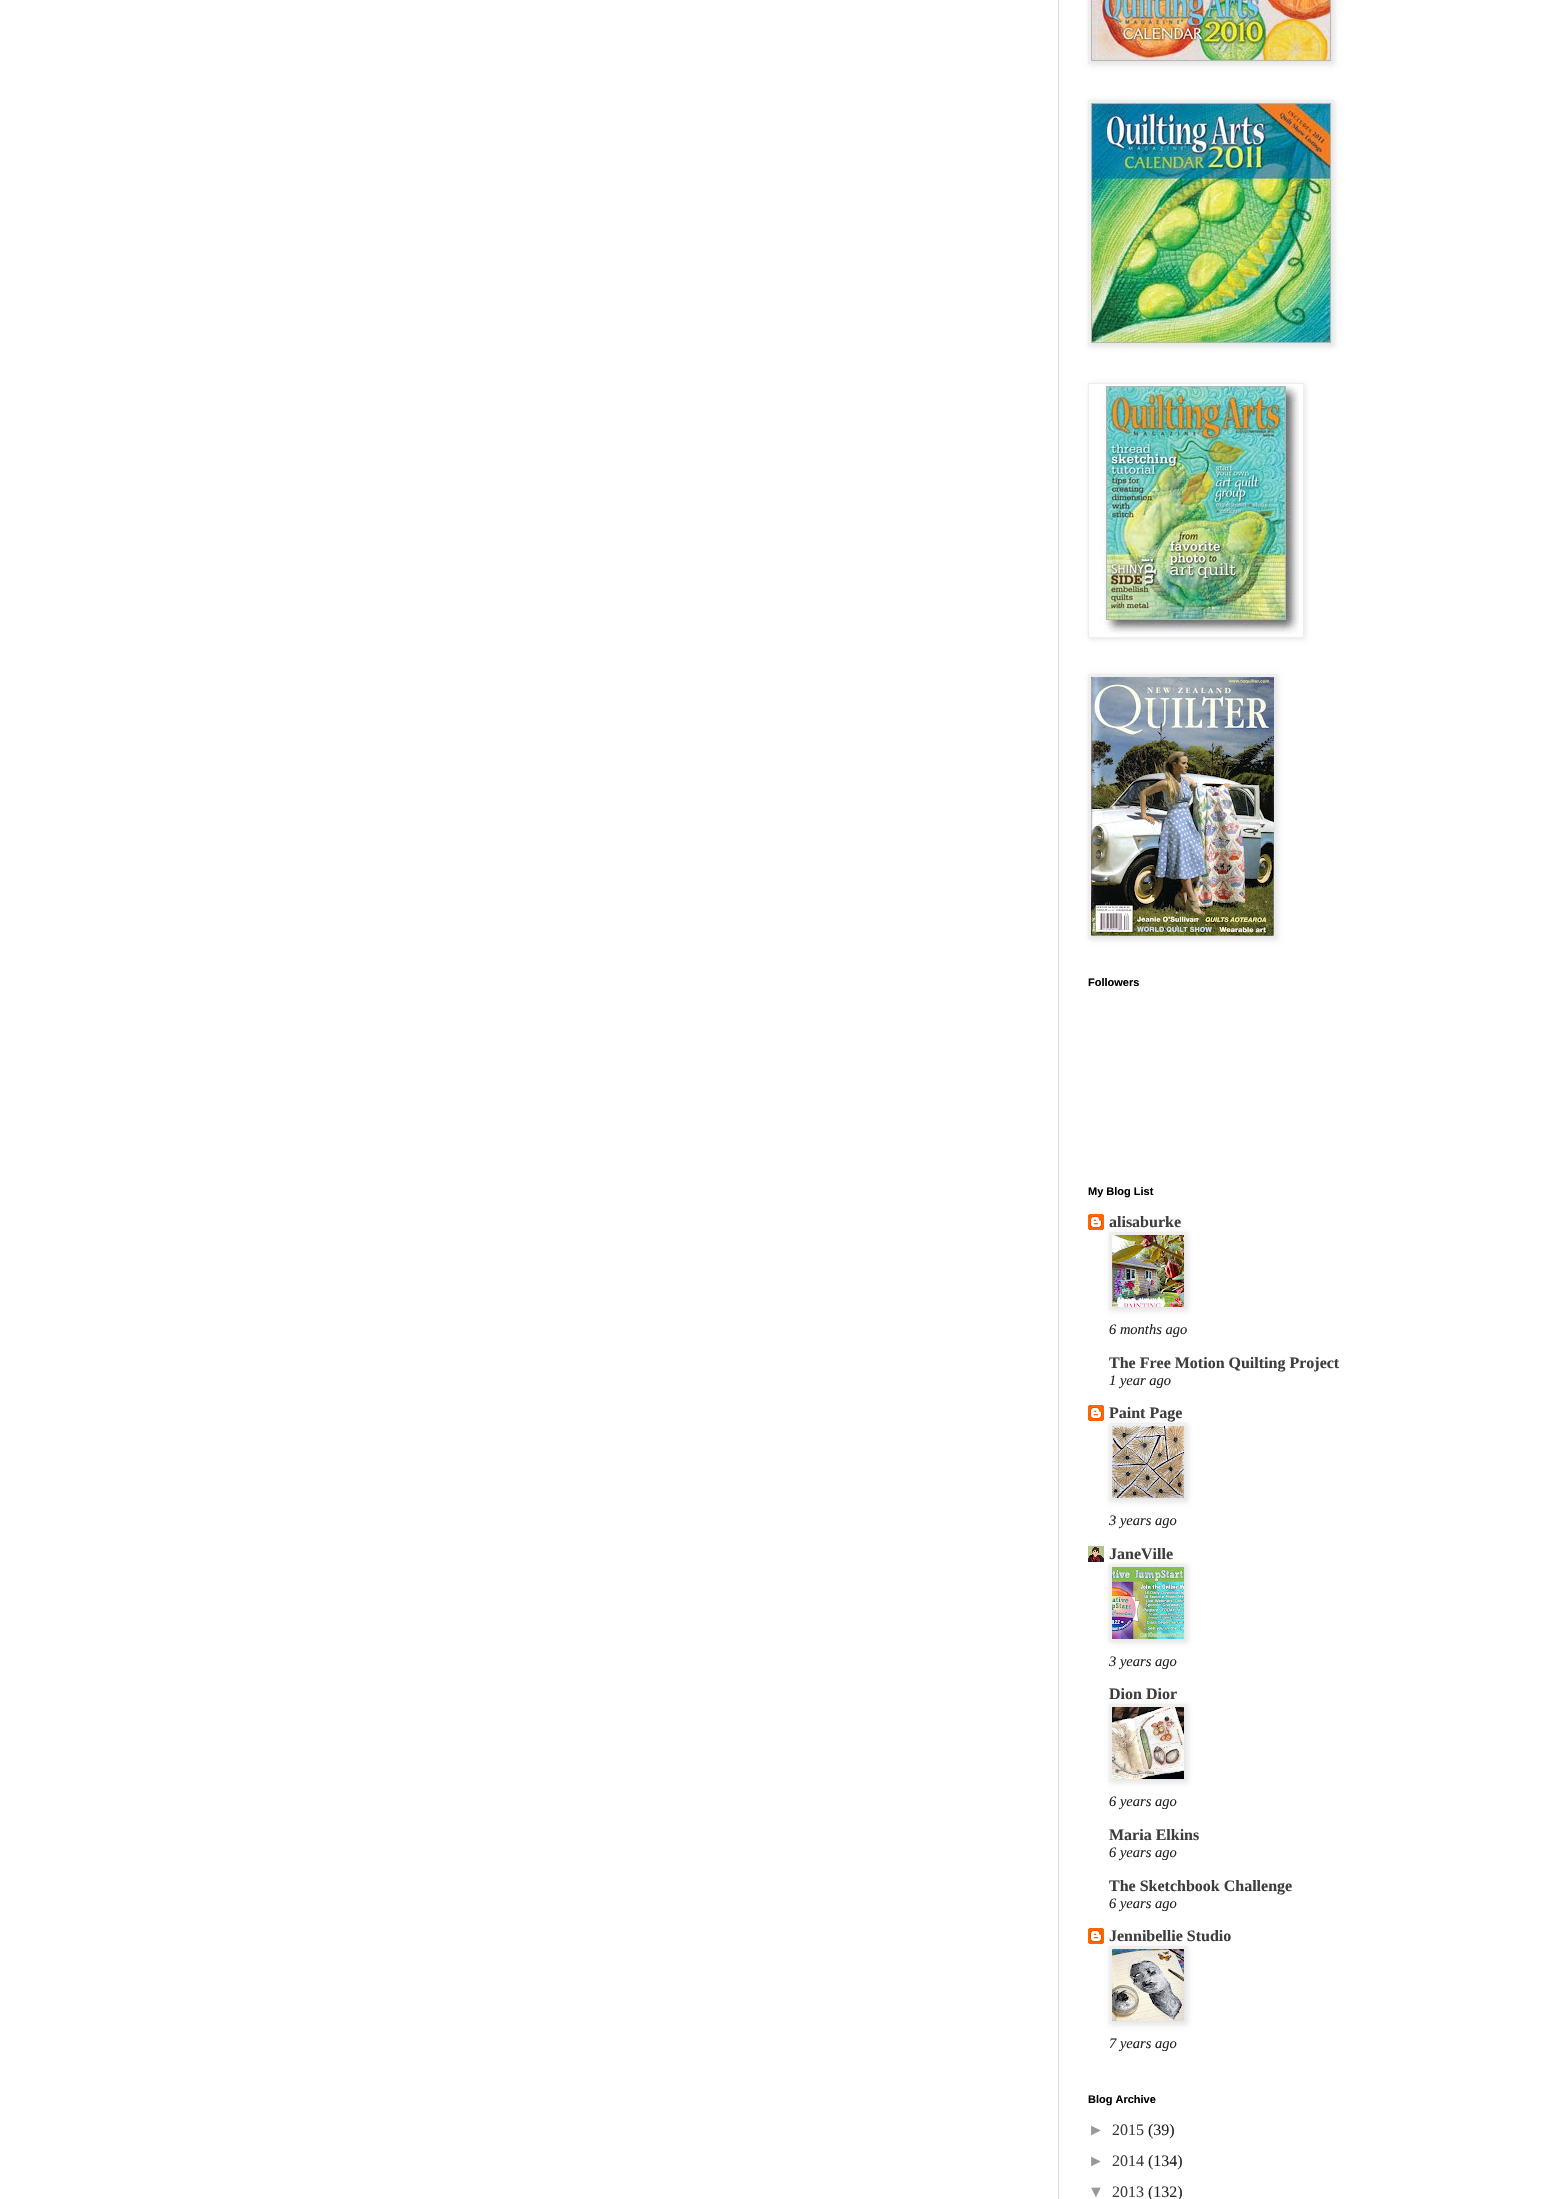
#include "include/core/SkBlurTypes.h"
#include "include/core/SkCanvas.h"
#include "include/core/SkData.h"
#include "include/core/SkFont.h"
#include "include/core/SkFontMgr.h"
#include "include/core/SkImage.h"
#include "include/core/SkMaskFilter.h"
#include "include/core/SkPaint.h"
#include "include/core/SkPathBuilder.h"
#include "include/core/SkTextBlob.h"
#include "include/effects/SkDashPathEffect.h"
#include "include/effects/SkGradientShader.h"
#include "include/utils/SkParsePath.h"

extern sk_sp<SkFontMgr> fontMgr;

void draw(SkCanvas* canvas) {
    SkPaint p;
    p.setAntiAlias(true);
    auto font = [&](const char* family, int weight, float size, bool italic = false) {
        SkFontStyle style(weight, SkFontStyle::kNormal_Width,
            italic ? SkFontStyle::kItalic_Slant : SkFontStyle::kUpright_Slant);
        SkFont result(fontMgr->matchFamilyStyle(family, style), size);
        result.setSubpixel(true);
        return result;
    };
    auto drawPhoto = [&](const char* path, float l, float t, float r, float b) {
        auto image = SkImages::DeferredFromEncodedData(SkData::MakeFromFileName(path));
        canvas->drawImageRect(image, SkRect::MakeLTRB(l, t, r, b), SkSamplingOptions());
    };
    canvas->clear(0xFFFFFFFF);
    p.setColor(0xFFDDDDDD);
    canvas->drawRect(SkRect::MakeLTRB(1058, 0, 1059, 2199), p);
    p.setColor(0x1A000000);
    p.setMaskFilter(SkMaskFilter::MakeBlur(kNormal_SkBlurStyle, 2.5f));
    canvas->drawRect(SkRect::MakeLTRB(1089, -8, 1335, 65), p);
    p.setMaskFilter(nullptr);
    p.setStyle(SkPaint::kStroke_Style);
    p.setStrokeWidth(1);
    p.setColor(0xFFEEEEEE);
    canvas->drawRect(SkRect::MakeLTRB(1088.5f, -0.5f, 1333.5f, 63.5f), p);
    drawPhoto("media/1.png", 1091, 0, 1331, 61);
    p.setStyle(SkPaint::kFill_Style);
    p.setColor(0x1A000000);
    p.setMaskFilter(SkMaskFilter::MakeBlur(kNormal_SkBlurStyle, 2.5f));
    canvas->drawRect(SkRect::MakeLTRB(1089, 101, 1335, 347), p);
    p.setMaskFilter(nullptr);
    p.setStyle(SkPaint::kStroke_Style);
    p.setColor(0xFFEEEEEE);
    canvas->drawRect(SkRect::MakeLTRB(1088.5f, 100.5f, 1333.5f, 345.5f), p);
    drawPhoto("media/2.png", 1091, 103, 1331, 343);
    canvas->save();
    canvas->clipPath(SkPathBuilder(SkPathFillType::kEvenOdd).moveTo(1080, 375).lineTo(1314, 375).lineTo(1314, 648).lineTo(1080, 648).close().moveTo(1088, 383).lineTo(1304, 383).lineTo(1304, 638).lineTo(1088, 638).close().detach(), true);
    p.setStyle(SkPaint::kFill_Style);
    p.setColor(0x1A000000);
    p.setMaskFilter(SkMaskFilter::MakeBlur(kNormal_SkBlurStyle, 2.5f));
    canvas->drawRect(SkRect::MakeLTRB(1089, 384, 1305, 639), p);
    p.setMaskFilter(nullptr);
    canvas->restore();
    p.setStyle(SkPaint::kStroke_Style);
    p.setColor(0xFFEEEEEE);
    canvas->drawRect(SkRect::MakeLTRB(1088.5f, 383.5f, 1303.5f, 637.5f), p);
    drawPhoto("media/3.png", 1099, 386, 1299, 634);
    p.setStyle(SkPaint::kFill_Style);
    p.setColor(0x1A000000);
    p.setMaskFilter(SkMaskFilter::MakeBlur(kNormal_SkBlurStyle, 2.5f));
    canvas->drawRect(SkRect::MakeLTRB(1089, 675, 1278, 940), p);
    p.setMaskFilter(nullptr);
    p.setStyle(SkPaint::kStroke_Style);
    p.setColor(0xFFEEEEEE);
    canvas->drawRect(SkRect::MakeLTRB(1088.5f, 674.5f, 1276.5f, 938.5f), p);
    drawPhoto("media/4.png", 1091, 677, 1274, 936);
    auto font1 = font("Liberation Sans", 700, 11);
    p.setStyle(SkPaint::kFill_Style);
    p.setColor(0xFF000000);
    canvas->drawString("Followers", 1088, 986, font1, p);
    canvas->drawString("My Blog List", 1088, 1195, font1, p);
    drawPhoto("media/5.png", 1088, 1214, 1104, 1230);
    auto font2 = font("Liberation Serif", 700, 16);
    p.setColor(0xFF3E3E3E);
    canvas->drawString("alisaburke", 1109, 1227, font2, p);
    p.setColor(0x1A000000);
    p.setMaskFilter(SkMaskFilter::MakeBlur(kNormal_SkBlurStyle, 2.5f));
    canvas->drawRect(SkRect::MakeLTRB(1110, 1233, 1188, 1311), p);
    p.setMaskFilter(nullptr);
    p.setStyle(SkPaint::kStroke_Style);
    p.setColor(0xFFEEEEEE);
    canvas->drawRect(SkRect::MakeLTRB(1109.5f, 1232.5f, 1186.5f, 1309.5f), p);
    drawPhoto("media/6.png", 1112, 1235, 1184, 1307);
    auto font3 = font("Liberation Serif", 400, 14.5f, true);
    p.setStyle(SkPaint::kFill_Style);
    p.setColor(0xFF222222);
    canvas->drawString("6 months ago", 1109, 1334, font3, p);
    p.setColor(0xFF3E3E3E);
    canvas->drawString("The Free Motion Quilting Project", 1109, 1368, font2, p);
    p.setColor(0xFF222222);
    canvas->drawString("1 year ago", 1109, 1385, font3, p);
    drawPhoto("media/5.png", 1088, 1405, 1104, 1421);
    p.setColor(0xFF3E3E3E);
    canvas->drawString("Paint Page", 1109, 1418, font2, p);
    p.setColor(0x1A000000);
    p.setMaskFilter(SkMaskFilter::MakeBlur(kNormal_SkBlurStyle, 2.5f));
    canvas->drawRect(SkRect::MakeLTRB(1110, 1424, 1188, 1502), p);
    p.setMaskFilter(nullptr);
    p.setStyle(SkPaint::kStroke_Style);
    p.setColor(0xFFEEEEEE);
    canvas->drawRect(SkRect::MakeLTRB(1109.5f, 1423.5f, 1186.5f, 1500.5f), p);
    drawPhoto("media/7.png", 1112, 1426, 1184, 1498);
    p.setStyle(SkPaint::kFill_Style);
    p.setColor(0xFF222222);
    canvas->drawString("3 years ago", 1109, 1525, font3, p);
    drawPhoto("media/8.png", 1088, 1546, 1104, 1562);
    p.setColor(0xFF3E3E3E);
    canvas->drawString("JaneVille", 1109, 1559, font2, p);
    p.setColor(0x1A000000);
    p.setMaskFilter(SkMaskFilter::MakeBlur(kNormal_SkBlurStyle, 2.5f));
    canvas->drawRect(SkRect::MakeLTRB(1110, 1565, 1188, 1643), p);
    p.setMaskFilter(nullptr);
    p.setStyle(SkPaint::kStroke_Style);
    p.setColor(0xFFEEEEEE);
    canvas->drawRect(SkRect::MakeLTRB(1109.5f, 1564.5f, 1186.5f, 1641.5f), p);
    drawPhoto("media/9.png", 1112, 1567, 1184, 1639);
    p.setStyle(SkPaint::kFill_Style);
    p.setColor(0xFF222222);
    canvas->drawString("3 years ago", 1109, 1666, font3, p);
    p.setColor(0xFF3E3E3E);
    canvas->drawString("Dion Dior", 1109, 1699, font2, p);
    p.setColor(0x1A000000);
    p.setMaskFilter(SkMaskFilter::MakeBlur(kNormal_SkBlurStyle, 2.5f));
    canvas->drawRect(SkRect::MakeLTRB(1110, 1705, 1188, 1783), p);
    p.setMaskFilter(nullptr);
    p.setStyle(SkPaint::kStroke_Style);
    p.setColor(0xFFEEEEEE);
    canvas->drawRect(SkRect::MakeLTRB(1109.5f, 1704.5f, 1186.5f, 1781.5f), p);
    drawPhoto("media/10.png", 1112, 1707, 1184, 1779);
    p.setStyle(SkPaint::kFill_Style);
    p.setColor(0xFF222222);
    canvas->drawString("6 years ago", 1109, 1806, font3, p);
    p.setColor(0xFF3E3E3E);
    canvas->drawString("Maria Elkins", 1109, 1840, font2, p);
    p.setColor(0xFF222222);
    canvas->drawString("6 years ago", 1109, 1857, font3, p);
    p.setColor(0xFF3E3E3E);
    canvas->drawString("The Sketchbook Challenge", 1109, 1891, font2, p);
    p.setColor(0xFF222222);
    canvas->drawString("6 years ago", 1109, 1908, font3, p);
    drawPhoto("media/5.png", 1088, 1928, 1104, 1944);
    p.setColor(0xFF3E3E3E);
    canvas->drawString("Jennibellie Studio", 1109, 1941, font2, p);
    p.setColor(0x1A000000);
    p.setMaskFilter(SkMaskFilter::MakeBlur(kNormal_SkBlurStyle, 2.5f));
    canvas->drawRect(SkRect::MakeLTRB(1110, 1947, 1188, 2025), p);
    p.setMaskFilter(nullptr);
    p.setStyle(SkPaint::kStroke_Style);
    p.setColor(0xFFEEEEEE);
    canvas->drawRect(SkRect::MakeLTRB(1109.5f, 1946.5f, 1186.5f, 2023.5f), p);
    drawPhoto("media/11.png", 1112, 1949, 1184, 2021);
    p.setStyle(SkPaint::kFill_Style);
    p.setColor(0xFF222222);
    canvas->drawString("7 years ago", 1109, 2048, font3, p);
    p.setColor(0xFF000000);
    canvas->drawString("Blog Archive", 1088, 2103, font1, p);
    auto font4 = font("Liberation Sans", 400, 16);
    p.setColor(0xFF999999);
    canvas->drawString("►", 1088, 2135, font4, p);
    auto font5 = font("Liberation Serif", 400, 16);
    p.setColor(0xFF3E3E3E);
    canvas->drawString("2015", 1112, 2135, font5, p);
    p.setColor(0xFF222222);
    canvas->drawString("(39)", 1148, 2135, font5, p);
    p.setColor(0xFF999999);
    canvas->drawString("►", 1088, 2166, font4, p);
    p.setColor(0xFF3E3E3E);
    canvas->drawString("2014", 1112, 2166, font5, p);
    p.setColor(0xFF222222);
    canvas->drawString("(134)", 1148, 2166, font5, p);
    p.setColor(0xFF999999);
    canvas->drawString("▼", 1088, 2197, font4, p);
    p.setColor(0xFF3E3E3E);
    canvas->drawString("2013", 1112, 2197, font5, p);
    p.setColor(0xFF222222);
    canvas->drawString("(132)", 1148, 2197, font5, p);
}
